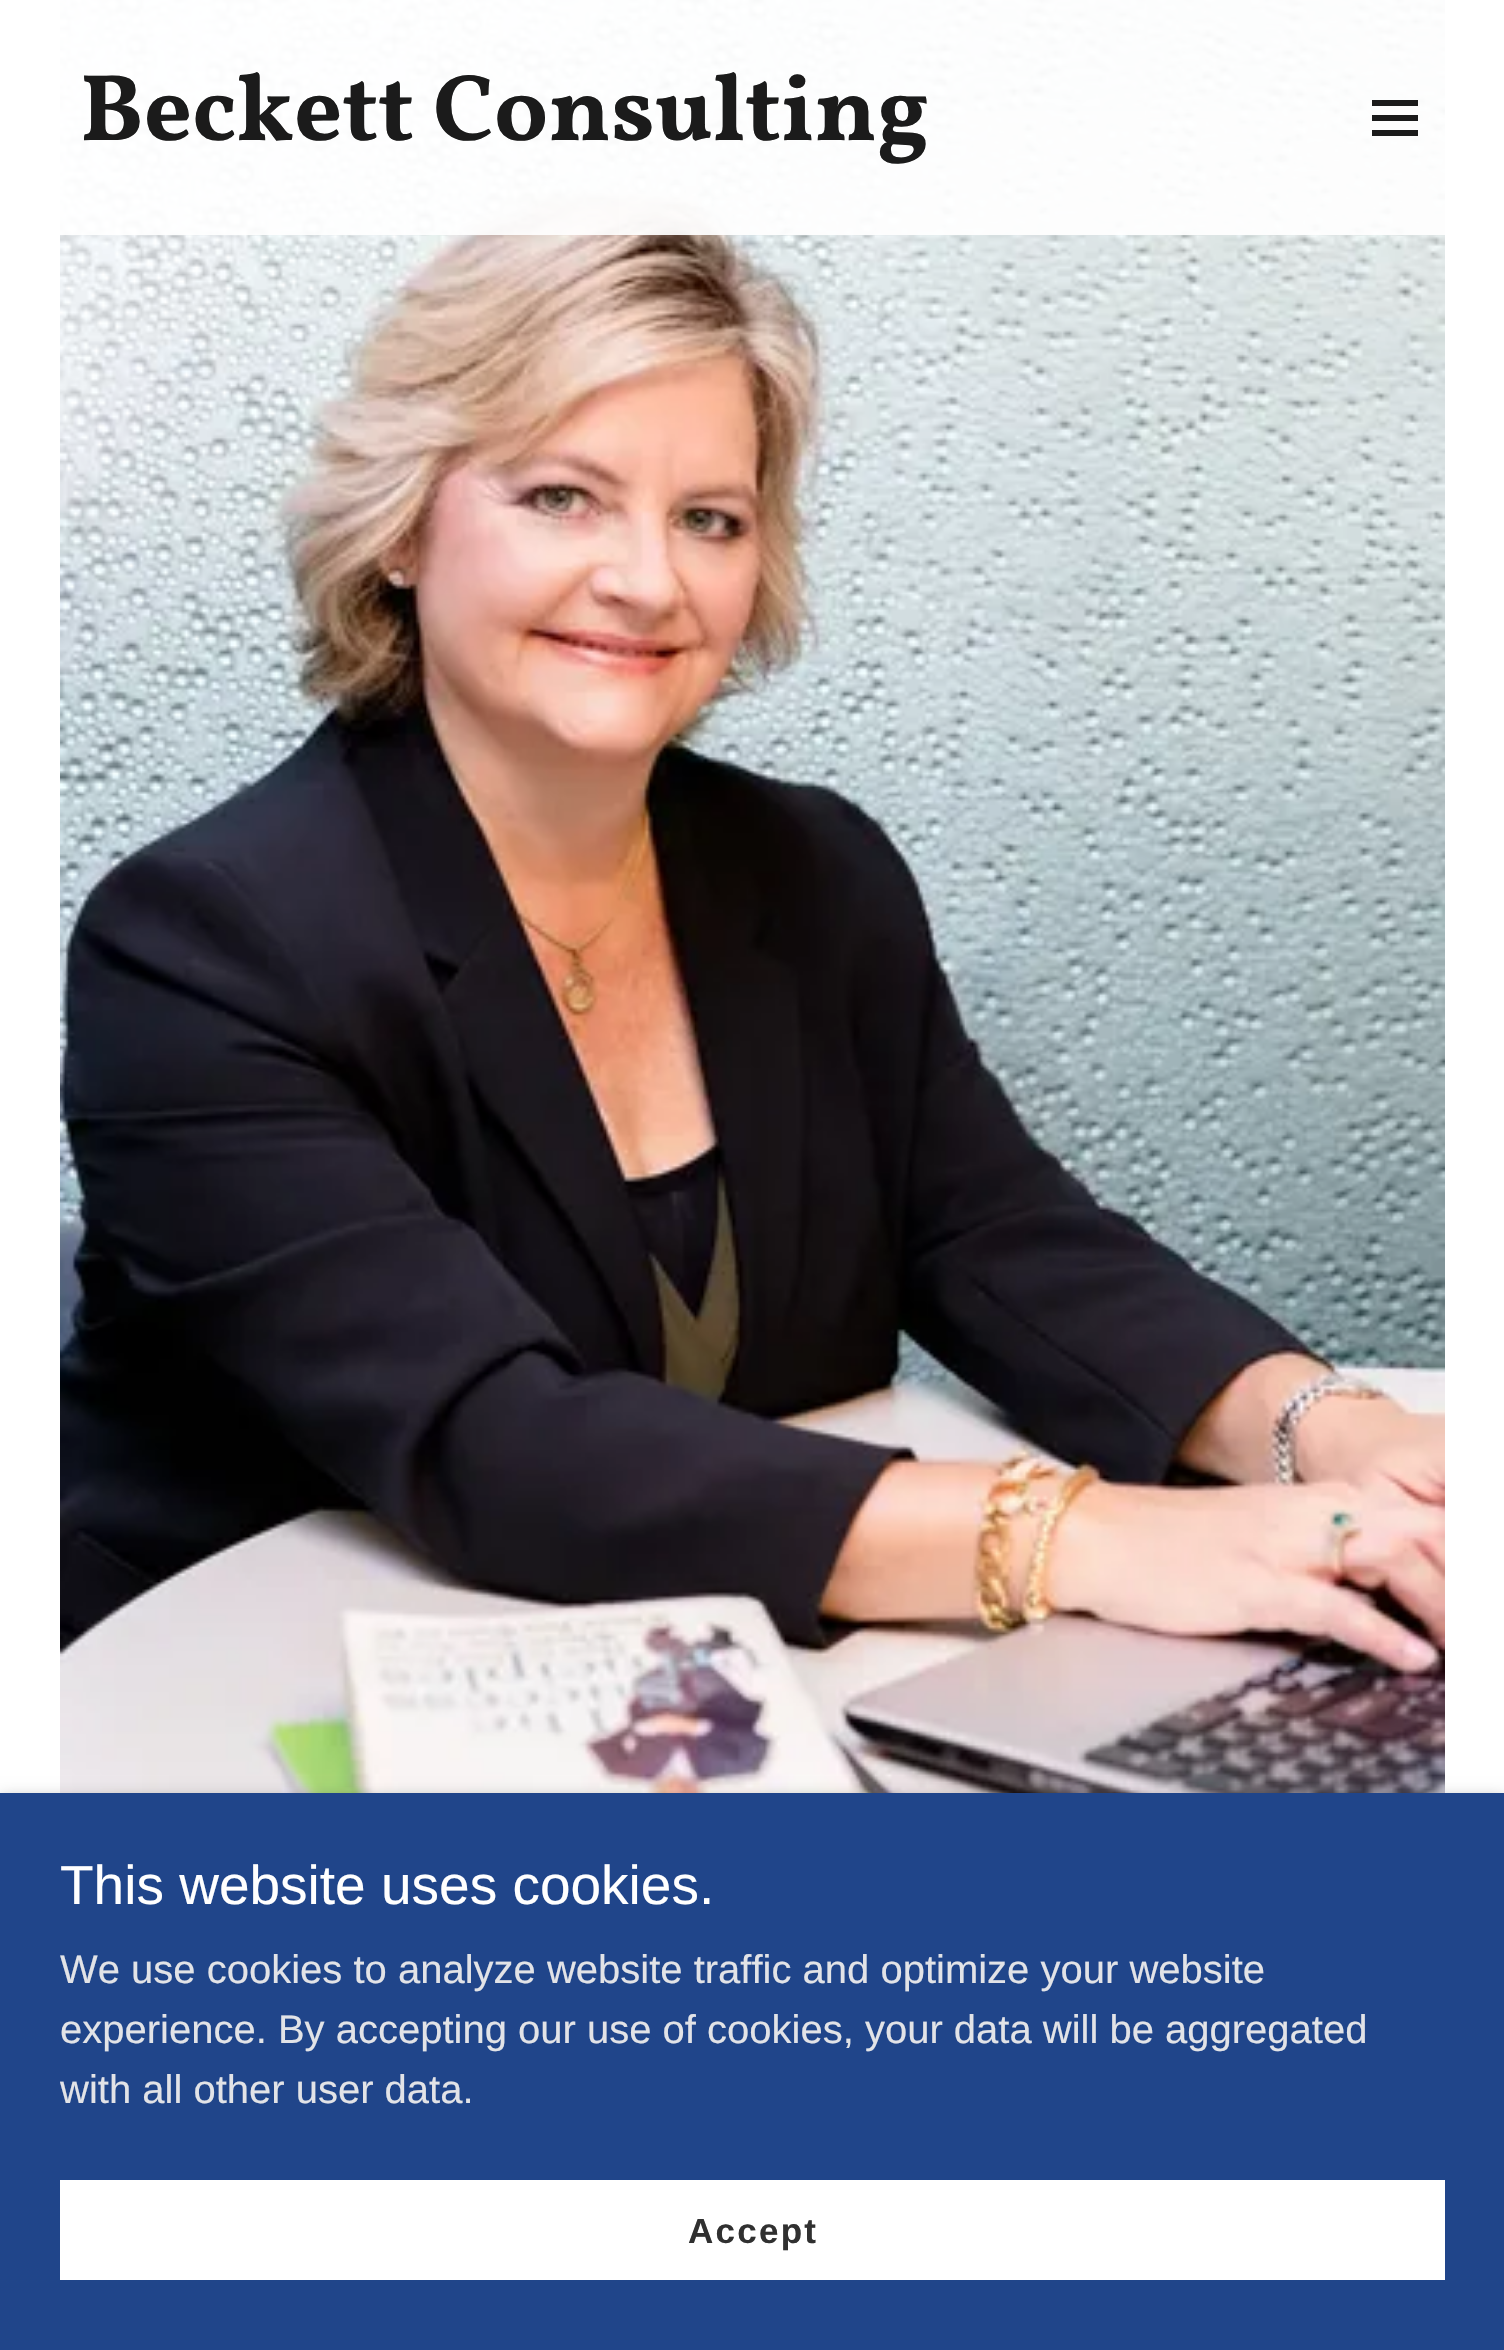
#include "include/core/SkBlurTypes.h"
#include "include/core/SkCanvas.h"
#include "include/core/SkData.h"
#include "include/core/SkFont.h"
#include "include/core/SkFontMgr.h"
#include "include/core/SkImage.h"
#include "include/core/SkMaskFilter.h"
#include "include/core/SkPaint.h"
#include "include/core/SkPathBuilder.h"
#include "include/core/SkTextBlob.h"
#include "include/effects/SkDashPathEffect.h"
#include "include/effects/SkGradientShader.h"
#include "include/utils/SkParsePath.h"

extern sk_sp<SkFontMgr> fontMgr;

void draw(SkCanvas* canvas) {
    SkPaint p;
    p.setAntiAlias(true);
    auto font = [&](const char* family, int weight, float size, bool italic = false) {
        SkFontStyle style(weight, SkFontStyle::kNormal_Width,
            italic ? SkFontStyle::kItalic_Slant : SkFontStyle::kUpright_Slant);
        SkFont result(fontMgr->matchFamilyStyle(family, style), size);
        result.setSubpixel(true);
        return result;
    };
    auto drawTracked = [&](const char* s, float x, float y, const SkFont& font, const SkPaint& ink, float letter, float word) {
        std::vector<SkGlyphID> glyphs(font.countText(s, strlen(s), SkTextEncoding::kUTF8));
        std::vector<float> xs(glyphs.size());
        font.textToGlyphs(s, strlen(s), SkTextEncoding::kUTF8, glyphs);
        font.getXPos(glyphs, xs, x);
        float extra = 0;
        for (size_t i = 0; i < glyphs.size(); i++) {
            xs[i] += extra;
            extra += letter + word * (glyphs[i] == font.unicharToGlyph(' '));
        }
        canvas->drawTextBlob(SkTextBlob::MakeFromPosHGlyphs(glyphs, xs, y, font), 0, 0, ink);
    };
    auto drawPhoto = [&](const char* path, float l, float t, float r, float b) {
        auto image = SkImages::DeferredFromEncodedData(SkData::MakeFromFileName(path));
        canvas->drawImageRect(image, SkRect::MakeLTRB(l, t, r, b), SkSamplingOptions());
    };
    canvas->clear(0xFFFFFFFF);
    drawPhoto("media/1.png", 60, 0, 1445, 1793);
    p.setColor(0xE6FFFFFF);
    canvas->drawRect(SkRect::MakeLTRB(60, 0, 1445, 235), p);
    p.setColor(0x40FFFFFF);
    canvas->drawRect(SkRect::MakeLTRB(619, 111, 1445, 235), p);
    auto font1 = font("Vollkorn", 700, 95);
    p.setColor(0xFF1B1B1B);
    canvas->drawString("Beckett Consulting", 80, 140, font1, p);
    {
        const struct { float l, t, r, b; SkColor color; } items[] = {
            {1372, 100, 1418, 106, 0xFF1B1B1B},
            {1372, 115, 1418, 121, 0xFF1B1B1B},
            {1372, 130, 1418, 136, 0xFF1B1B1B},
        };
        for (auto [l, t, r, b, color] : items) {
            p.setColor(color);
            canvas->drawRect(SkRect::MakeLTRB(l, t, r, b), p);
        }
    }
    p.setColor(0x4D000000);
    p.setMaskFilter(SkMaskFilter::MakeBlur(kNormal_SkBlurStyle, 7.5f));
    canvas->drawRect(SkRect::MakeLTRB(0, 1798, 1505, 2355), p);
    p.setMaskFilter(nullptr);
    p.setColor(0xFF20458A);
    canvas->drawRect(SkRect::MakeLTRB(0, 1793, 1504, 2350), p);
    auto font2 = font("Liberation Sans", 400, 55);
    p.setColor(0xFFFFFFFF);
    canvas->drawString("This website uses cookies.", 60, 1904, font2, p);
    auto font3 = font("Liberation Sans", 400, 40);
    p.setColor(0xFFE2E3E7);
    {
        const struct { const char* s; float x, y; } items[] = {
            {"We use cookies to analyze website traffic and optimize your website", 60, 1983},
            {"experience. By accepting our use of cookies, your data will be aggregated", 60, 2043},
            {"with all other user data.", 60, 2103},
        };
        for (auto [s, x, y] : items) {
            canvas->drawString(s, x, y, font3, p);
        }
    }
    p.setColor(0xFFFFFFFF);
    canvas->drawRect(SkRect::MakeLTRB(60, 2180, 1445, 2280), p);
    auto font4 = font("Liberation Sans", 700, 35);
    p.setColor(0xFF303030);
    drawTracked("Accept", 688, 2243, font4, p, 2.25f, 0);
}
